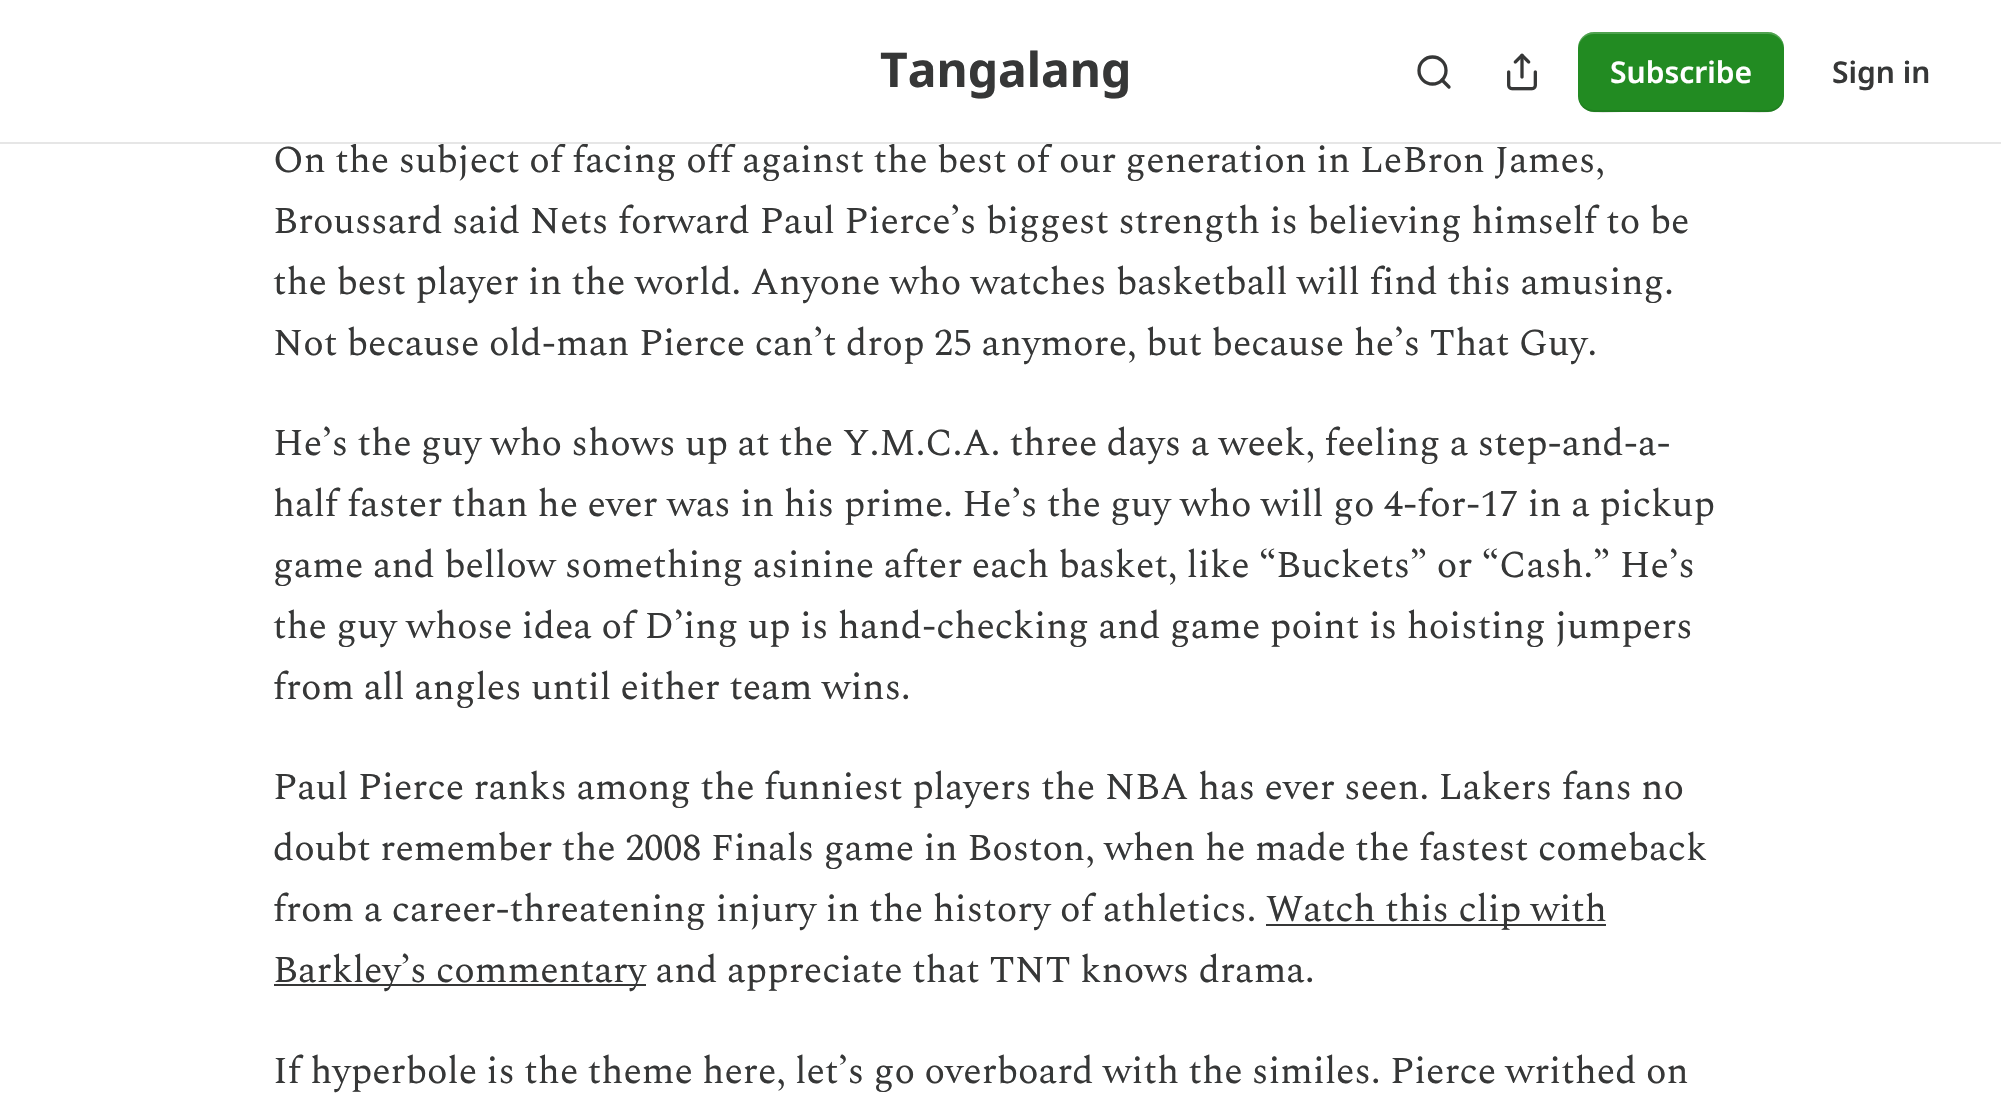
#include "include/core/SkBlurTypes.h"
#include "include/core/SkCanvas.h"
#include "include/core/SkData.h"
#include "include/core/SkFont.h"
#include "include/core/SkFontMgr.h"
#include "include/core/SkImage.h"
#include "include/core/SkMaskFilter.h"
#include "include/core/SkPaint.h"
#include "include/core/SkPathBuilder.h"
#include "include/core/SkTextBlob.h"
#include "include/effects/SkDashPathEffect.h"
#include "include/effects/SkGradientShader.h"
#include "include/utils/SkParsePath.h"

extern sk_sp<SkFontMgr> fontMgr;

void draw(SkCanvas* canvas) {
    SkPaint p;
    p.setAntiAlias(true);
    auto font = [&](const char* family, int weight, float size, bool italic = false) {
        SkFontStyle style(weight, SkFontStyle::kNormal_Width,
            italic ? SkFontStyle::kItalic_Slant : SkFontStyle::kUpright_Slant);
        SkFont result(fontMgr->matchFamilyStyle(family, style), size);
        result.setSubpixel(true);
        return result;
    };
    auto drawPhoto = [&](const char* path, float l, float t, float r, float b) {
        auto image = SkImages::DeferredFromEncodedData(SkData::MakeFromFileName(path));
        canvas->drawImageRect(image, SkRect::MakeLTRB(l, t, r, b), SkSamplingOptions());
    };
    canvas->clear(0xFFFFFFFF);
    auto font1 = font("Spectral", 400, 38);
    p.setColor(0xFF363737);
    canvas->drawString("On the subject of facing off against the best of our generation in LeBron James,", 273, 172, font1, p);
    p.setColor(0xFFE6E6E6);
    canvas->drawRect(SkRect::MakeLTRB(0, 142, 2001, 144), p);
    auto font2 = font("Noto Sans", 700, 48);
    p.setColor(0xFF363737);
    canvas->drawString("Tangalang", 880, 87, font2, p);
    p.setStyle(SkPaint::kStroke_Style);
    p.setStrokeWidth(3.3f);
    canvas->drawCircle(1432.5f, 70.5f, 13.5f, p);
    p.setStrokeCap(SkPaint::kRound_Cap);
    p.setStrokeJoin(SkPaint::kRound_Join);
    canvas->drawPath(SkPathBuilder().moveTo(1449, 87).lineTo(1442, 80).detach(), p);
    drawPhoto("media/1.png", 1507, 53, 1537, 91);
    p.setStyle(SkPaint::kFill_Style);
    p.setColor(0xFF228B22);
    canvas->drawRoundRect(SkRect::MakeLTRB(1578, 32, 1784, 112), 16, 16, p);
    p.setColor(0x1A000000);
    canvas->drawPath(SkPathBuilder().moveTo(1578, 94).cubicTo(1578, 119, 1607, 112, 1623, 112).lineTo(1739, 112).cubicTo(1755, 112, 1784, 119, 1784, 94).cubicTo(1784, 103, 1777, 110, 1768, 110).lineTo(1594, 110).cubicTo(1585, 110, 1578, 103, 1578, 94).close().detach(), p);
    p.setColor(0x33FFFFFF);
    canvas->drawPath(SkPathBuilder().moveTo(1594, 34).lineTo(1768, 34).cubicTo(1777, 34, 1784, 41, 1784, 50).cubicTo(1784, 25, 1755, 32, 1739, 32).lineTo(1623, 32).cubicTo(1607, 32, 1578, 25, 1578, 50).cubicTo(1578, 41, 1585, 34, 1594, 34).close().detach(), p);
    auto font3 = font("Noto Sans", 600, 30);
    p.setColor(0xFFFFFFFF);
    canvas->drawString("Subscribe", 1610, 83, font3, p);
    p.setColor(0xFF363737);
    canvas->drawString("Sign in", 1832, 83, font3, p);
    {
        const struct { const char* s; float x, y; } items[] = {
            {"Broussard said Nets forward Paul Pierce’s biggest strength is believing himself to be", 273, 233},
            {"the best player in the world. Anyone who watches basketball will find this amusing.", 273, 294},
            {"Not because old-man Pierce can’t drop 25 anymore, but because he’s That Guy.", 273, 355},
            {"He’s the guy who shows up at the Y.M.C.A. three days a week, feeling a step-and-a-", 273, 455},
            {"half faster than he ever was in his prime. He’s the guy who will go 4-for-17 in a pickup", 273, 516},
            {"game and bellow something asinine after each basket, like “Buckets” or “Cash.” He’s", 273, 577},
            {"the guy whose idea of D’ing up is hand-checking and game point is hoisting jumpers", 273, 638},
            {"from all angles until either team wins.", 273, 699},
            {"Paul Pierce ranks among the funniest players the NBA has ever seen. Lakers fans no", 273, 799},
            {"doubt remember the 2008 Finals game in Boston, when he made the fastest comeback", 273, 860},
            {"from a career-threatening injury in the history of athletics.", 273, 921},
        };
        for (auto [s, x, y] : items) {
            canvas->drawString(s, x, y, font1, p);
        }
    }
    canvas->drawRect(SkRect::MakeLTRB(1266, 924, 1606, 926), p);
    canvas->drawString("Watch this clip with", 1266, 921, font1, p);
    canvas->drawRect(SkRect::MakeLTRB(274, 984, 646, 986), p);
    canvas->drawString("Barkley’s commentary and appreciate that TNT knows drama.", 273, 982, font1, p);
    canvas->drawString("If hyperbole is the theme here, let’s go overboard with the similes. Pierce writhed on", 273, 1083, font1, p);
}
